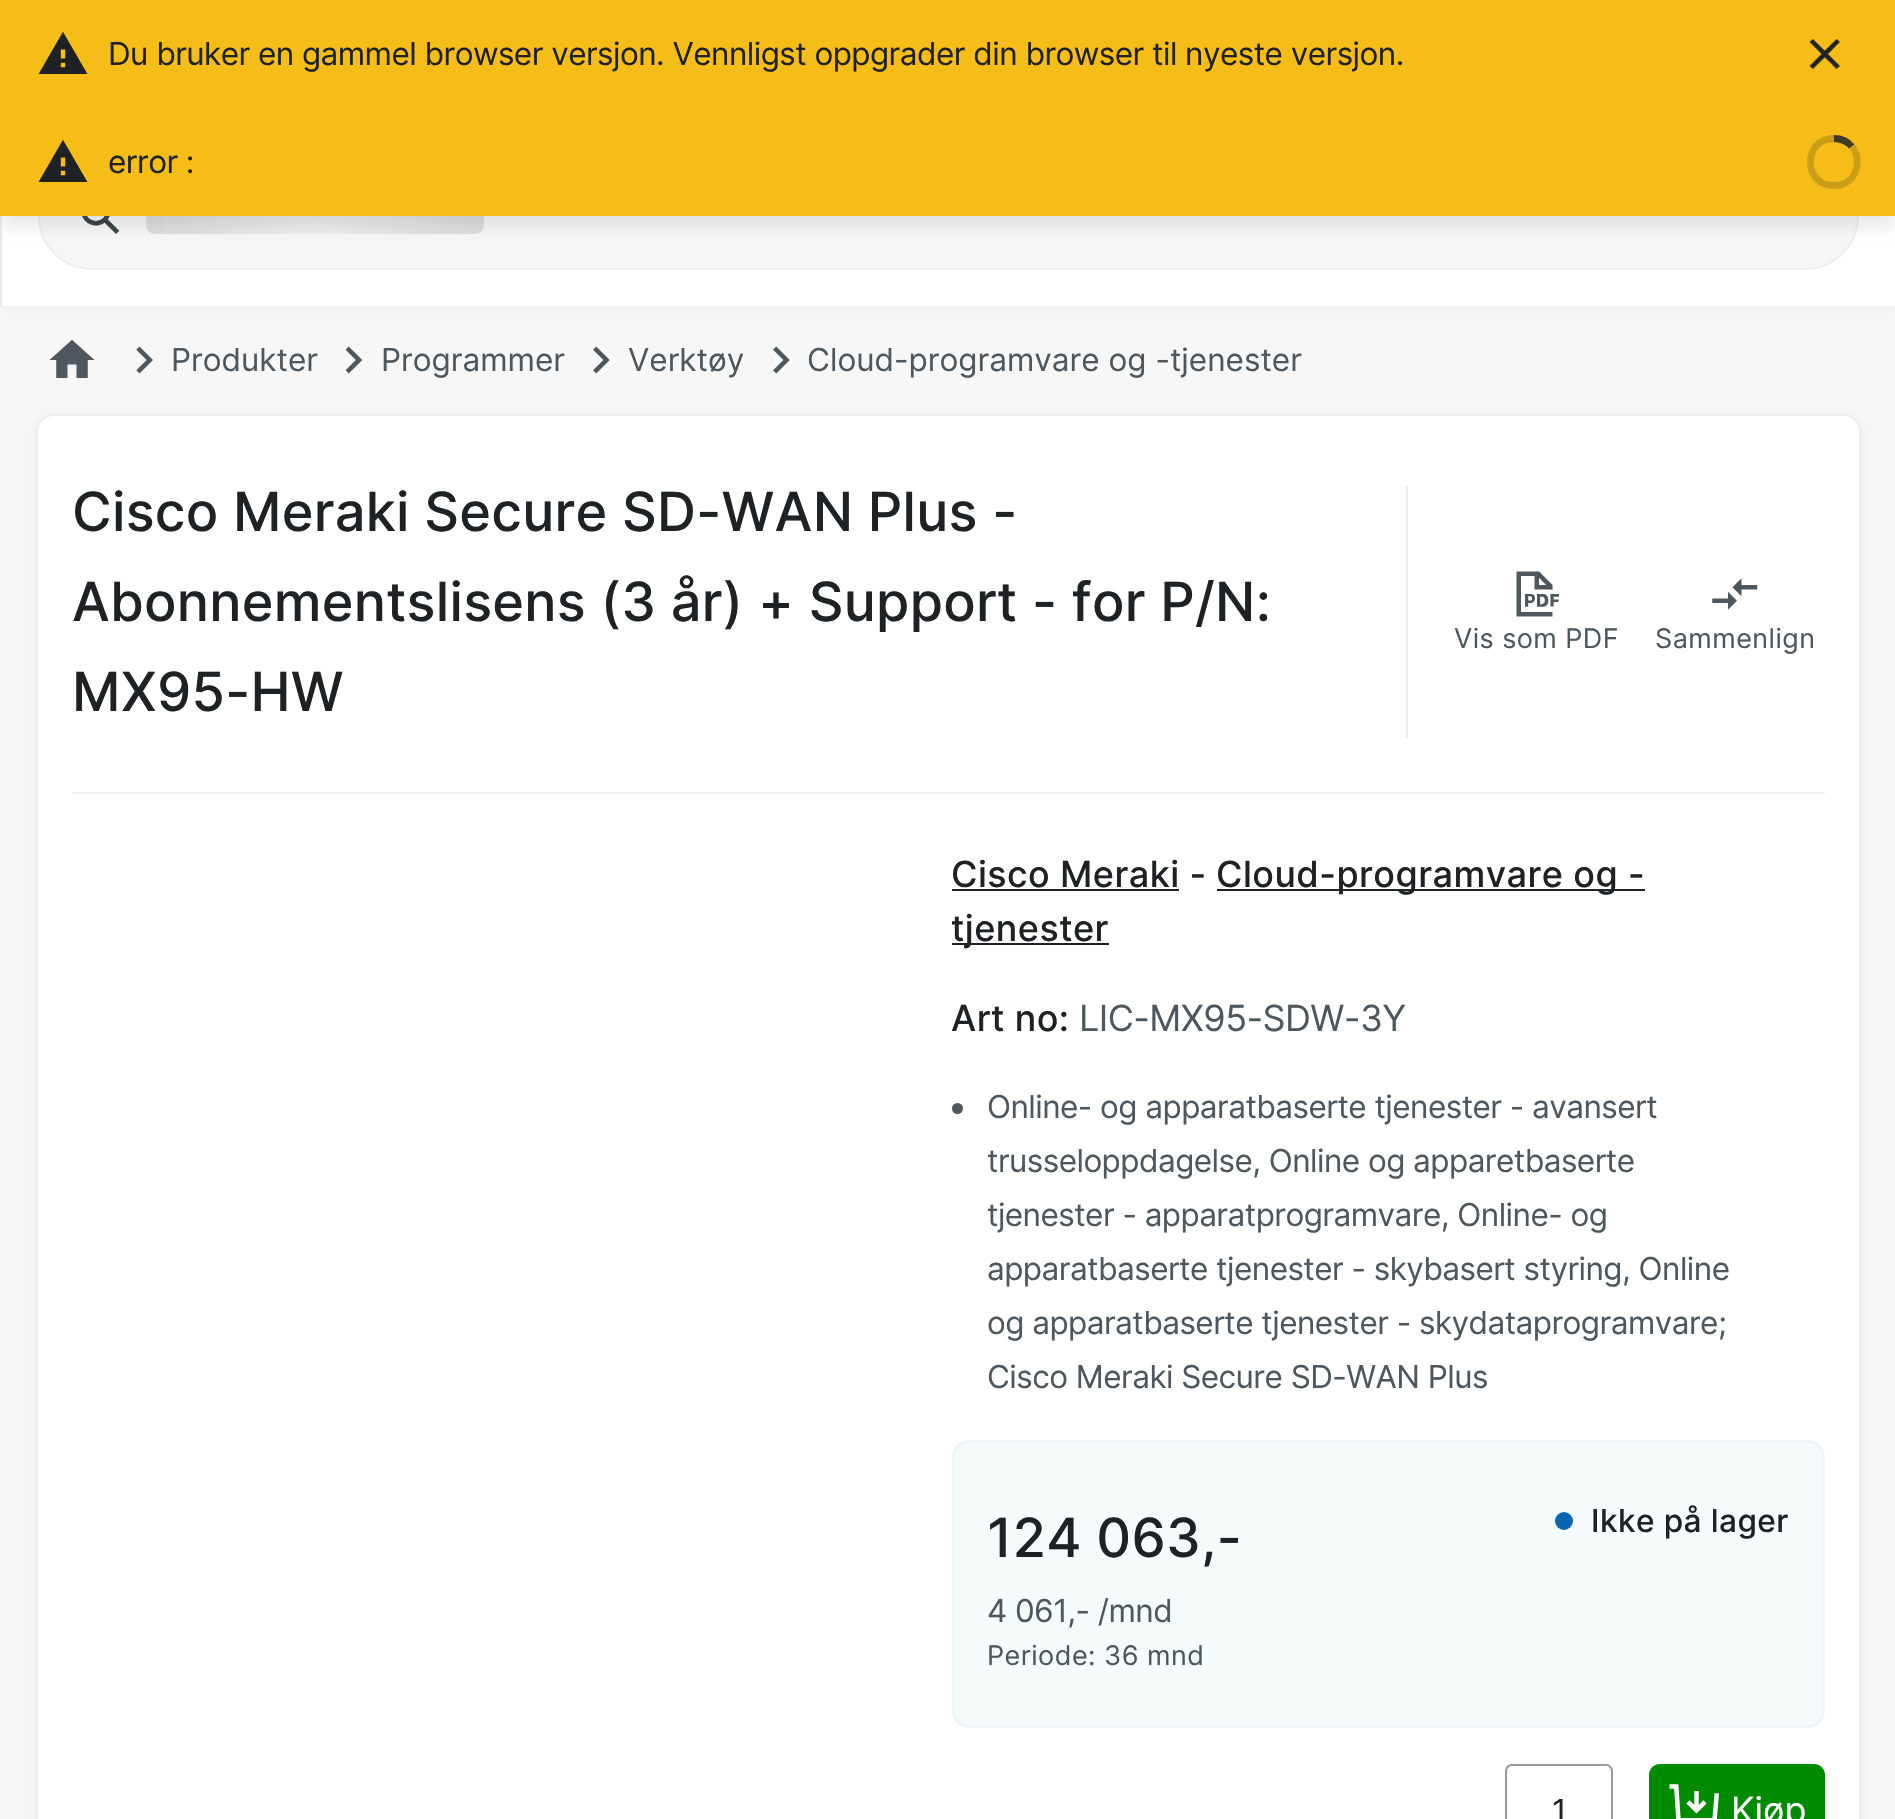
#include "include/core/SkBlurTypes.h"
#include "include/core/SkCanvas.h"
#include "include/core/SkData.h"
#include "include/core/SkFont.h"
#include "include/core/SkFontMgr.h"
#include "include/core/SkImage.h"
#include "include/core/SkMaskFilter.h"
#include "include/core/SkPaint.h"
#include "include/core/SkPathBuilder.h"
#include "include/core/SkTextBlob.h"
#include "include/effects/SkDashPathEffect.h"
#include "include/effects/SkGradientShader.h"
#include "include/utils/SkParsePath.h"

extern sk_sp<SkFontMgr> fontMgr;

void draw(SkCanvas* canvas) {
    SkPaint p;
    p.setAntiAlias(true);
    auto font = [&](const char* family, int weight, float size, bool italic = false) {
        SkFontStyle style(weight, SkFontStyle::kNormal_Width,
            italic ? SkFontStyle::kItalic_Slant : SkFontStyle::kUpright_Slant);
        SkFont result(fontMgr->matchFamilyStyle(family, style), size);
        result.setSubpixel(true);
        return result;
    };
    auto drawTracked = [&](const char* s, float x, float y, const SkFont& font, const SkPaint& ink, float letter, float word) {
        std::vector<SkGlyphID> glyphs(font.countText(s, strlen(s), SkTextEncoding::kUTF8));
        std::vector<float> xs(glyphs.size());
        font.textToGlyphs(s, strlen(s), SkTextEncoding::kUTF8, glyphs);
        font.getXPos(glyphs, xs, x);
        float extra = 0;
        for (size_t i = 0; i < glyphs.size(); i++) {
            xs[i] += extra;
            extra += letter + word * (glyphs[i] == font.unicharToGlyph(' '));
        }
        canvas->drawTextBlob(SkTextBlob::MakeFromPosHGlyphs(glyphs, xs, y, font), 0, 0, ink);
    };
    auto drawPhoto = [&](const char* path, float l, float t, float r, float b) {
        auto image = SkImages::DeferredFromEncodedData(SkData::MakeFromFileName(path));
        canvas->drawImageRect(image, SkRect::MakeLTRB(l, t, r, b), SkSamplingOptions());
    };
    canvas->clear(0xFFF7F7F7);
    p.setColor(0xFFEDEEEE);
    canvas->drawRect(SkRect::MakeLTRB(0, 216, 2, 306), p);
    p.setColor(0x0D000000);
    p.setMaskFilter(SkMaskFilter::MakeBlur(kNormal_SkBlurStyle, 4.5f));
    canvas->drawRect(SkRect::MakeLTRB(2, 2, 1895, 308), p);
    p.setMaskFilter(nullptr);
    p.setColor(0xFFFFFFFF);
    canvas->drawRect(SkRect::MakeLTRB(2, 216, 1895, 306), p);
    p.setColor(0xFFF7F7F7);
    canvas->drawRoundRect(SkRect::MakeLTRB(39, 163, 1858, 269), 53, 53, p);
    p.setStyle(SkPaint::kStroke_Style);
    p.setStrokeWidth(2);
    p.setColor(0xFFEDEEEE);
    canvas->drawRoundRect(SkRect::MakeLTRB(39, 163, 1858, 269), 53, 53, p);
    drawPhoto("media/3.png", 82, 216, 120, 234);
    p.setStyle(SkPaint::kFill_Style);
    p.setColor(0xFFDBDDDF);
    canvas->drawRoundRect(SkRect::MakeLTRB(146, 198, 484, 234), 9, 9, p);
    {
        const SkColor colors[] = {0x00EDEEEE, 0xFFEDEEEE, 0x00EDEEEE};
        const float stops[] = {0, 0.5f, 1};
        const SkPoint ends[] = {{146, 216}, {484, 216}};
        p.setShader(SkGradientShader::MakeLinear(ends, colors, stops, 3, SkTileMode::kClamp));
        p.setAlpha(255);
    }
    canvas->drawRect(SkRect::MakeLTRB(163, 216, 467, 234), p);
    p.setShader(nullptr);
    p.setColor(0x1A000000);
    p.setMaskFilter(SkMaskFilter::MakeBlur(kNormal_SkBlurStyle, 9));
    canvas->drawRect(SkRect::MakeLTRB(0, 117, 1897, 225), p);
    p.setMaskFilter(nullptr);
    p.setColor(0xFFF6BD18);
    canvas->drawRect(SkRect::MakeLTRB(0, 0, 1895, 216), p);
    drawPhoto("media/1.png", 38, 32, 88, 74);
    auto font1 = font("Inter", 400, 31.5f);
    p.setColor(0xFF1E2224);
    drawTracked("Du bruker en gammel browser versjon. Vennligst oppgrader din browser til nyeste versjon.", 108, 65, font1, p, -0.55f, 0);
    drawPhoto("media/2.png", 1809, 39, 1840, 69);
    drawPhoto("media/1.png", 38, 140, 88, 182);
    drawTracked("error :", 108, 173, font1, p, -0.55f, 0);
    p.setStyle(SkPaint::kStroke_Style);
    p.setStrokeWidth(6.8f);
    p.setColor(0xFFCB9E1A);
    canvas->drawPath(SkPathBuilder().moveTo(1834, 138.5f).cubicTo(1865, 138.5f, 1865, 185.5f, 1834, 185.5f).cubicTo(1802.5f, 185.5f, 1802.5f, 138.5f, 1834, 138.5f).detach(), p);
    p.setColor(0xCC1E2224);
    canvas->drawPath(SkPathBuilder().moveTo(1834, 138.5f).cubicTo(1841, 138.5f, 1847.5f, 141.5f, 1851.5f, 146.5f).detach(), p);
    drawPhoto("media/4.png", 49, 339, 95, 378);
    drawPhoto("media/5.png", 136, 346, 153, 374);
    p.setStyle(SkPaint::kFill_Style);
    p.setColor(0xFF4D575D);
    canvas->drawString("Produkter", 171, 371, font1, p);
    drawPhoto("media/6.png", 345, 346, 362, 374);
    canvas->drawString("Programmer", 381, 371, font1, p);
    drawPhoto("media/7.png", 593, 346, 610, 374);
    canvas->drawString("Verktøy", 628, 371, font1, p);
    drawPhoto("media/7.png", 773, 346, 790, 374);
    canvas->drawString("Cloud-programvare og -tjenester", 807, 371, font1, p);
    p.setColor(0x0D000000);
    p.setMaskFilter(SkMaskFilter::MakeBlur(kNormal_SkBlurStyle, 4.5f));
    canvas->drawRoundRect(SkRect::MakeLTRB(36, 416, 1861, 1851), 18, 18, p);
    p.setMaskFilter(nullptr);
    p.setColor(0xFFFFFFFF);
    canvas->drawRoundRect(SkRect::MakeLTRB(37, 415, 1860, 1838), 17, 17, p);
    p.setStyle(SkPaint::kStroke_Style);
    p.setStrokeWidth(2);
    p.setColor(0xFFEDEEEE);
    canvas->drawRoundRect(SkRect::MakeLTRB(37, 415, 1860, 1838), 17, 17, p);
    auto font2 = font("Inter", 500, 54);
    p.setStyle(SkPaint::kFill_Style);
    p.setColor(0xFF1E2224);
    {
        const struct { const char* s; float x, y; } items[] = {
            {"Cisco Meraki Secure SD-WAN Plus -", 72, 531},
            {"Abonnementslisens (3 år) + Support - for P/N:", 72, 621},
            {"MX95-HW", 72, 711},
        };
        for (auto [s, x, y] : items) {
            drawTracked(s, x, y, font2, p, 0.25f, 0);
        }
    }
    p.setColor(0xFFEDEEEE);
    canvas->drawRect(SkRect::MakeLTRB(1406, 486, 1408, 738), p);
    drawPhoto("media/8.png", 1516, 571, 1559, 617);
    auto font3 = font("Inter", 400, 27);
    p.setColor(0xFF4D575D);
    drawTracked("Vis som PDF", 1454, 648, font3, p, 0.45f, 0);
    drawPhoto("media/9.png", 1712, 578, 1758, 610);
    drawTracked("Sammenlign", 1655, 648, font3, p, 0.45f, 0);
    canvas->save();
    canvas->clipRect(SkRect::MakeLTRB(72, 792, 1825, 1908));
    p.setColor(0xFFEDEEEE);
    canvas->drawPath(SkPathBuilder(SkPathFillType::kEvenOdd).moveTo(-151, 569).lineTo(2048, 569).lineTo(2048, 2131).lineTo(-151, 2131).close().moveTo(72, 794).lineTo(1825, 794).cubicTo(1825, 794, 1826, 795, 1826, 795).lineTo(1826, 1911).cubicTo(1826, 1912, 1825, 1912, 1825, 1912).lineTo(72, 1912).cubicTo(71, 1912, 71, 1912, 71, 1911).lineTo(71, 795).cubicTo(71, 795, 71, 794, 72, 794).close().detach(), p);
    canvas->restore();
    auto font4 = font("Inter", 500, 36);
    p.setColor(0xFF1E2224);
    drawTracked("Cisco Meraki -", 951, 887, font4, p, 0.45f, 0);
    canvas->drawRect(SkRect::MakeLTRB(952, 889, 1179, 891), p);
    canvas->drawRect(SkRect::MakeLTRB(1217, 889, 1645, 891), p);
    drawTracked("Cloud-programvare og -", 1216, 887, font4, p, 0.45f, 0);
    canvas->drawRect(SkRect::MakeLTRB(952, 943, 1109, 945), p);
    drawTracked("tjenester", 951, 941, font4, p, 0.45f, 0);
    drawTracked("Art no:", 951, 1031, font4, p, 0.45f, 0);
    auto font5 = font("Inter", 400, 36);
    p.setColor(0xFF4D575D);
    drawTracked("LIC-MX95-SDW-3Y", 1079, 1031, font5, p, -0.55f, 0);
    canvas->drawCircle(957.5f, 1108.5f, 5.5f, p);
    {
        const struct { const char* s; float x, y; } items[] = {
            {"Online- og apparatbaserte tjenester - avansert", 987, 1118},
            {"trusseloppdagelse, Online og apparetbaserte", 987, 1172},
            {"tjenester - apparatprogramvare, Online- og", 987, 1226},
            {"apparatbaserte tjenester - skybasert styring, Online", 987, 1280},
            {"og apparatbaserte tjenester - skydataprogramvare;", 987, 1334},
            {"Cisco Meraki Secure SD-WAN Plus", 987, 1388},
        };
        for (auto [s, x, y] : items) {
            drawTracked(s, x, y, font1, p, -0.55f, 0);
        }
    }
    p.setColor(0xFFF5FAFA);
    canvas->drawRoundRect(SkRect::MakeLTRB(953, 1441, 1824, 1727), 17, 17, p);
    p.setStyle(SkPaint::kStroke_Style);
    p.setColor(0xFFEEF5F7);
    canvas->drawRoundRect(SkRect::MakeLTRB(953, 1441, 1824, 1727), 17, 17, p);
    p.setStyle(SkPaint::kFill_Style);
    p.setColor(0xFF1E2224);
    drawTracked("124 063,-", 987, 1557, font2, p, 0.25f, 0);
    p.setColor(0xFF4D575D);
    drawTracked("4 061,- /mnd", 987, 1622, font1, p, -0.55f, 0);
    drawTracked("Periode: 36 mnd", 987, 1665, font3, p, 0.45f, 0);
    p.setColor(0xFF0965B1);
    canvas->drawCircle(1564, 1521, 9, p);
    auto font6 = font("Inter", 500, 31.5f);
    p.setColor(0xFF1E2224);
    drawTracked("Ikke på lager", 1591, 1532, font6, p, 0.45f, 0);
    p.setStyle(SkPaint::kStroke_Style);
    p.setColor(0xFF949A9E);
    canvas->drawRoundRect(SkRect::MakeLTRB(1506, 1765, 1612, 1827), 6, 6, p);
    p.setStyle(SkPaint::kFill_Style);
    p.setColor(0xFF1E2224);
    canvas->drawString("1", 1552, 1822, font1, p);
    p.setColor(0xFF008A00);
    canvas->drawRoundRect(SkRect::MakeLTRB(1649, 1764, 1825, 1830), 11, 11, p);
    drawPhoto("media/10.png", 1669, 1784, 1719, 1819);
    p.setColor(0xFFFFFFFF);
    canvas->drawString("Kjøp", 1731, 1823, font5, p);
}
